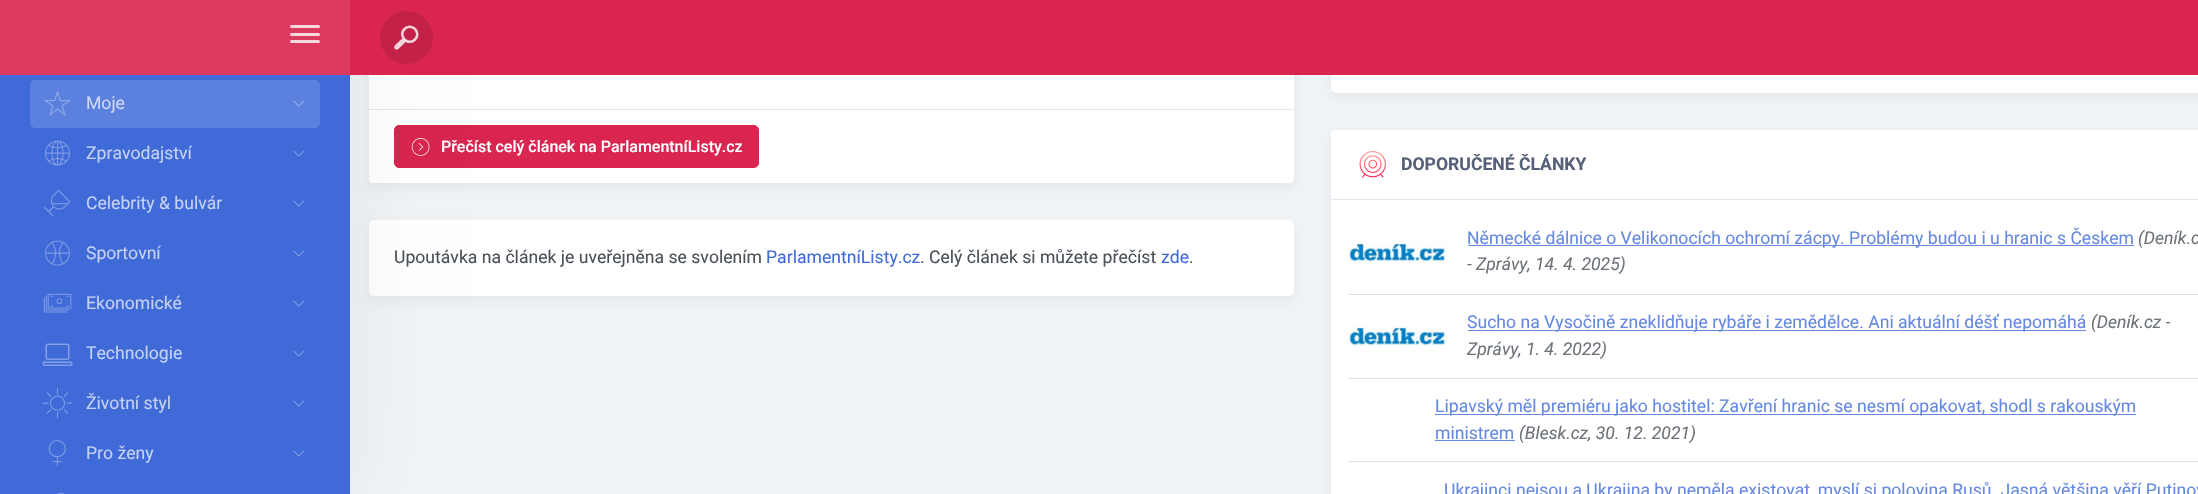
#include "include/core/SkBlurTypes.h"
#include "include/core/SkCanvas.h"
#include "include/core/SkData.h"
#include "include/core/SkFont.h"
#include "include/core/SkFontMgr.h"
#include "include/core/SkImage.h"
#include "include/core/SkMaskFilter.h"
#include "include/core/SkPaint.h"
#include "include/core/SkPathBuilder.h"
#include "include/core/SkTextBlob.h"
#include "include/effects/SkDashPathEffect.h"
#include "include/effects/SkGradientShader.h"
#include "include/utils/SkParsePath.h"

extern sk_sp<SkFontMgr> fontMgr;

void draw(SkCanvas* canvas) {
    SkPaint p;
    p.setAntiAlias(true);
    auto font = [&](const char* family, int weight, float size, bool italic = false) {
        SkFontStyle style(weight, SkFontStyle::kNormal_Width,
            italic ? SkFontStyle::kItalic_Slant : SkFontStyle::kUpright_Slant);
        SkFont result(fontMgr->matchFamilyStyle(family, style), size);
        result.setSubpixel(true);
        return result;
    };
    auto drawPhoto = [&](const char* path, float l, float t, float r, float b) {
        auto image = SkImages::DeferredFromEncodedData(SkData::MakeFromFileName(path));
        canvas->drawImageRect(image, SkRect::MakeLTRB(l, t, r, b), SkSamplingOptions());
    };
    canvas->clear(0xFFF1F4F6);
    p.setColor(0x0D040914);
    p.setMaskFilter(SkMaskFilter::MakeBlur(kNormal_SkBlurStyle, 5.5f));
    canvas->drawRoundRect(SkRect::MakeLTRB(369, -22, 1294, 188), 5, 5, p);
    p.setMaskFilter(nullptr);
    p.setColor(0xFFFFFFFF);
    canvas->drawRoundRect(SkRect::MakeLTRB(369, -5, 1294, 183), 5, 5, p);
    canvas->drawPath(SkPathBuilder().moveTo(369, 109).lineTo(1294, 109).lineTo(1294, 179).cubicTo(1294, 181, 1292, 183, 1290, 183).lineTo(373, 183).cubicTo(371, 183, 369, 181, 369, 179).close().detach(), p);
    p.setColor(0xFFE2E6EF);
    canvas->drawRect(SkRect::MakeLTRB(369, 109, 1294, 110), p);
    p.setColor(0xFFD92550);
    canvas->drawRoundRect(SkRect::MakeLTRB(394.5f, 125.5f, 758.5f, 167.5f), 4.5f, 4.5f, p);
    p.setStyle(SkPaint::kStroke_Style);
    p.setStrokeWidth(1);
    canvas->drawRoundRect(SkRect::MakeLTRB(394.5f, 125.5f, 758.5f, 167.5f), 4.5f, 4.5f, p);
    drawPhoto("media/12.png", 411, 138, 430, 156);
    p.setStyle(SkPaint::kFill_Style);
    p.setColor(0x0D040914);
    p.setMaskFilter(SkMaskFilter::MakeBlur(kNormal_SkBlurStyle, 5.5f));
    canvas->drawRoundRect(SkRect::MakeLTRB(369, 225, 1294, 301), 5, 5, p);
    p.setMaskFilter(nullptr);
    p.setColor(0xFFFFFFFF);
    canvas->drawRoundRect(SkRect::MakeLTRB(369, 220, 1294, 296), 5, 5, p);
    p.setColor(0x0D000000);
    p.setMaskFilter(SkMaskFilter::MakeBlur(kNormal_SkBlurStyle, 37.5f));
    canvas->drawRect(SkRect::MakeLTRB(9, 0, 359, 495), p);
    p.setMaskFilter(nullptr);
    p.setColor(0x0D040914);
    p.setMaskFilter(SkMaskFilter::MakeBlur(kNormal_SkBlurStyle, 5.5f));
    canvas->drawRoundRect(SkRect::MakeLTRB(1331, -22, 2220, 98), 5, 5, p);
    p.setMaskFilter(nullptr);
    p.setColor(0xFFFFFFFF);
    canvas->drawRoundRect(SkRect::MakeLTRB(1331, -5, 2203, 93), 5, 5, p);
    p.setColor(0xFFD92550);
    canvas->drawRect(SkRect::MakeLTRB(350, 0, 2198, 75), p);
    p.setColor(0xFFDC3A61);
    canvas->drawRect(SkRect::MakeLTRB(0, 0, 350, 75), p);
    p.setColor(0xFFF8D8DF);
    canvas->drawRoundRect(SkRect::MakeLTRB(290, 25, 320, 28), 1.5f, 1.5f, p);
    canvas->drawRoundRect(SkRect::MakeLTRB(290, 33, 320, 36), 1.5f, 1.5f, p);
    canvas->drawRoundRect(SkRect::MakeLTRB(290, 40, 320, 43), 1.5f, 1.5f, p);
    p.setColor(0xFFC32148);
    canvas->drawCircle(406.5f, 37.5f, 26.5f, p);
    p.setColor(0xFFF3D3DA);
    canvas->drawPath(SkPathBuilder().moveTo(404.5f, 39.5f).cubicTo(407, 42, 403, 44.5f, 401.5f, 46).cubicTo(400, 47.5f, 397, 51.5f, 395, 49).cubicTo(392.5f, 46.5f, 396.5f, 44, 398, 42.5f).cubicTo(399.5f, 41, 402, 37, 404.5f, 39.5f).close().detach(), p);
    p.setStyle(SkPaint::kStroke_Style);
    p.setStrokeWidth(2.5f);
    p.setColor(0xCCFFFFFF);
    canvas->drawPath(SkPathBuilder().moveTo(415, 29).cubicTo(422, 36, 411.5f, 46.5f, 404.5f, 39.5f).cubicTo(397.5f, 32.5f, 408, 22, 415, 29).close().detach(), p);
    p.setStyle(SkPaint::kFill_Style);
    p.setColor(0xFF3F6AD8);
    canvas->drawRect(SkRect::MakeLTRB(0, 75, 350, 494), p);
    p.setColor(0xFF5C80DE);
    canvas->drawRoundRect(SkRect::MakeLTRB(30, 80, 320, 128), 5, 5, p);
    drawPhoto("media/1.png", 44, 90, 71, 116);
    auto font1 = font("Roboto", 400, 17.6f);
    p.setColor(0xFFCED9F5);
    canvas->drawString("Moje", 86, 109, font1, p);
    drawPhoto("media/2.png", 293, 100, 305, 107);
    drawPhoto("media/3.png", 45, 140, 70, 166);
    p.setColor(0xFFC5D2F3);
    canvas->drawString("Zpravodajství", 86, 159, font1, p);
    drawPhoto("media/4.png", 293, 150, 305, 157);
    drawPhoto("media/5.png", 43, 189, 71, 217);
    canvas->drawString("Celebrity & bulvár", 86, 209, font1, p);
    drawPhoto("media/4.png", 293, 200, 305, 207);
    drawPhoto("media/6.png", 45, 240, 70, 266);
    canvas->drawString("Sportovní", 86, 259, font1, p);
    drawPhoto("media/4.png", 293, 250, 305, 257);
    drawPhoto("media/7.png", 43, 293, 72, 313);
    canvas->drawString("Ekonomické", 86, 309, font1, p);
    drawPhoto("media/4.png", 293, 300, 305, 307);
    drawPhoto("media/8.png", 42, 343, 73, 366);
    canvas->drawString("Technologie", 86, 359, font1, p);
    drawPhoto("media/4.png", 293, 350, 305, 357);
    drawPhoto("media/9.png", 42, 388, 73, 419);
    canvas->drawString("Životní styl", 86, 409, font1, p);
    drawPhoto("media/4.png", 293, 400, 305, 407);
    drawPhoto("media/10.png", 48, 440, 66, 467);
    canvas->drawString("Pro ženy", 86, 459, font1, p);
    drawPhoto("media/4.png", 293, 450, 305, 457);
    drawPhoto("media/11.png", 57, 492, 65, 494);
    auto font2 = font("Roboto", 500, 16);
    p.setColor(0xFFFFFFFF);
    canvas->drawString("Přečíst celý článek na ParlamentníListy.cz", 441, 152, font2, p);
    p.setColor(0xFF495057);
    canvas->drawString("Upoutávka na článek je uveřejněna se svolením", 394, 263, font1, p);
    p.setColor(0xFF3F6AD8);
    canvas->drawString("ParlamentníListy.cz", 766, 263, font1, p);
    p.setColor(0xFF495057);
    canvas->drawString(". Celý článek si můžete přečíst", 920, 263, font1, p);
    p.setColor(0xFF3F6AD8);
    canvas->drawString("zde", 1161, 263, font1, p);
    p.setColor(0xFF495057);
    canvas->drawString(".", 1189, 263, font1, p);
    p.setColor(0x0D040914);
    p.setMaskFilter(SkMaskFilter::MakeBlur(kNormal_SkBlurStyle, 5.5f));
    canvas->drawRoundRect(SkRect::MakeLTRB(1331, 135, 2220, 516), 5, 5, p);
    p.setMaskFilter(nullptr);
    p.setColor(0xFFFFFFFF);
    canvas->drawRoundRect(SkRect::MakeLTRB(1331, 130, 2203, 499), 5, 5, p);
    canvas->drawPath(SkPathBuilder().moveTo(1335, 130).lineTo(2198, 130).cubicTo(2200, 130, 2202, 132, 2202, 134).lineTo(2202, 200).lineTo(1331, 200).lineTo(1331, 134).cubicTo(1331, 132, 1333, 130, 1335, 130).close().detach(), p);
    p.setColor(0xFFE2E6EF);
    canvas->drawRect(SkRect::MakeLTRB(1331, 199, 2198, 200), p);
    drawPhoto("media/13.png", 1359, 151, 1386, 178);
    auto font3 = font("Roboto", 700, 17.6f);
    p.setColor(0xFF565F78);
    canvas->drawString("DOPORUČENÉ ČLÁNKY", 1401, 170, font3, p);
    drawPhoto("media/14.png", 1347, 243, 1447, 263);
    p.setColor(0xFF6588E0);
    canvas->drawRect(SkRect::MakeLTRB(1468, 245, 2134, 246), p);
    canvas->drawString("Německé dálnice o Velikonocích ochromí zácpy. Problémy budou i u hranic s Českem", 1467, 244, font1, p);
    auto font4 = font("Roboto", 400, 17.6f, true);
    p.setColor(0xFF6D7379);
    canvas->drawString("(Deník.c", 2138, 244, font4, p);
    canvas->drawString("- Zprávy, 14. 4. 2025)", 1467, 270, font4, p);
    p.setColor(0xFFDFDFDF);
    canvas->drawRect(SkRect::MakeLTRB(1348, 294, 2198, 295), p);
    drawPhoto("media/15.png", 1347, 326, 1447, 347);
    p.setColor(0xFF6588E0);
    canvas->drawRect(SkRect::MakeLTRB(1468, 330, 2086, 331), p);
    canvas->drawString("Sucho na Vysočině zneklidňuje rybáře i zemědělce. Ani aktuální déšť nepomáhá", 1467, 328, font1, p);
    p.setColor(0xFF6D7379);
    canvas->drawString("(Deník.cz -", 2091, 328, font4, p);
    canvas->drawString("Zprávy, 1. 4. 2022)", 1467, 355, font4, p);
    p.setColor(0xFFDFDFDF);
    canvas->drawRect(SkRect::MakeLTRB(1348, 378, 2198, 379), p);
    p.setColor(0xFF6588E0);
    canvas->drawRect(SkRect::MakeLTRB(1435, 414, 2136, 415), p);
    canvas->drawString("Lipavský měl premiéru jako hostitel: Zavření hranic se nesmí opakovat, shodl s rakouským", 1435, 412, font1, p);
    canvas->drawString("ministrem", 1435, 439, font1, p);
    canvas->drawRect(SkRect::MakeLTRB(1435, 440, 1515, 441), p);
    p.setColor(0xFF6D7379);
    canvas->drawString("(Blesk.cz, 30. 12. 2021)", 1519, 439, font4, p);
    p.setColor(0xFFDFDFDF);
    canvas->drawRect(SkRect::MakeLTRB(1348, 461, 2198, 462), p);
    p.setColor(0xFF6588E0);
    canvas->drawString("Ukrajinci nejsou a Ukrajina by neměla existovat, myslí si polovina Rusů. Jasná většina věří Putinov", 1444, 496, font1, p);
}
